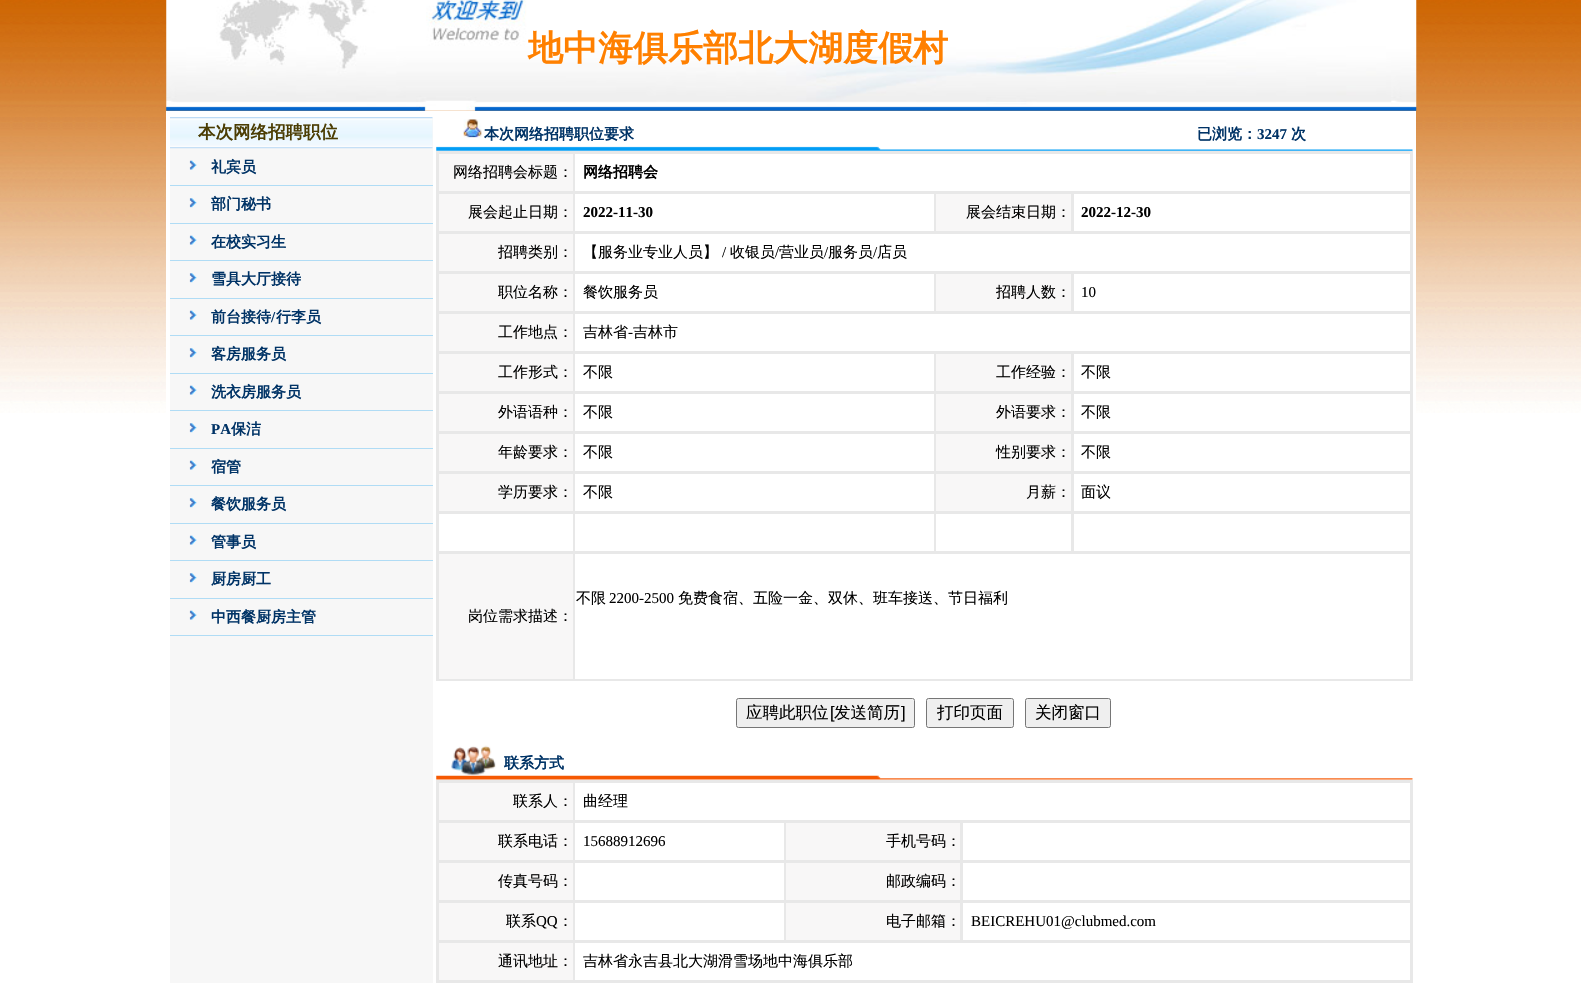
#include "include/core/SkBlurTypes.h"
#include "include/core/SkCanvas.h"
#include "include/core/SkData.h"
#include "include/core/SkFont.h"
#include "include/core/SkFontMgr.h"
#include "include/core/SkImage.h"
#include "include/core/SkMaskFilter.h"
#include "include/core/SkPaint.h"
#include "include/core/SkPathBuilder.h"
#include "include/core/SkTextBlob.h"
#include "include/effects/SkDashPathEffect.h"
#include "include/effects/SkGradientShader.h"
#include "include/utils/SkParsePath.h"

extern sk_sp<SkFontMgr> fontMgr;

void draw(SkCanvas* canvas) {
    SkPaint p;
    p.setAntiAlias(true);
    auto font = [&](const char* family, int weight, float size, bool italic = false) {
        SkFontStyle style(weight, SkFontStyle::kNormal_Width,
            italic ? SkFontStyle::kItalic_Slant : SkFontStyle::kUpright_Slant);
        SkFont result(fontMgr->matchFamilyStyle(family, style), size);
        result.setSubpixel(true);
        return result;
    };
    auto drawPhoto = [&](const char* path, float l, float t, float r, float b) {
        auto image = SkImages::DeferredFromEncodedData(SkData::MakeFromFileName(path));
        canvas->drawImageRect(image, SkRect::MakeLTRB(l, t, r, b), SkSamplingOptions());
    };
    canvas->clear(0xFFFFFFFF);
    drawPhoto("media/1.png", 0, 0, 1581, 413);
    drawPhoto("media/2.png", 166, 0, 1417, 111);
    auto font1 = font("WenQuanYi Zen Hei", 700, 35);
    p.setColor(0xFFFF8000);
    canvas->drawString("地中海俱乐部北大湖度假村", 528, 60, font1, p);
    p.setColor(0xFFFFFFFF);
    canvas->drawRect(SkRect::MakeLTRB(166, 111, 1416, 413), p);
    p.setColor(0xFFF7F7F7);
    canvas->drawRect(SkRect::MakeLTRB(170, 118, 433, 983), p);
    drawPhoto("media/3.png", 170, 117, 433, 149);
    auto font2 = font("WenQuanYi Zen Hei", 700, 17.5f);
    p.setColor(0xFF4B3D03);
    canvas->drawString("本次网络招聘职位", 198, 138, font2, p);
    drawPhoto("media/4.png", 189, 160, 197, 170);
    auto font3 = font("WenQuanYi Zen Hei", 700, 15);
    p.setColor(0xFF003366);
    canvas->drawString("礼宾员", 211, 172, font3, p);
    p.setColor(0xFFB0DCF5);
    canvas->drawRect(SkRect::MakeLTRB(170, 185, 433, 186), p);
    drawPhoto("media/5.png", 189, 198, 197, 208);
    p.setColor(0xFF003366);
    canvas->drawString("部门秘书", 211, 209, font3, p);
    p.setColor(0xFFB0DCF5);
    canvas->drawRect(SkRect::MakeLTRB(170, 223, 433, 224), p);
    drawPhoto("media/4.png", 189, 235, 197, 245);
    p.setColor(0xFF003366);
    canvas->drawString("在校实习生", 211, 247, font3, p);
    p.setColor(0xFFB0DCF5);
    canvas->drawRect(SkRect::MakeLTRB(170, 260, 433, 261), p);
    drawPhoto("media/5.png", 189, 273, 197, 283);
    p.setColor(0xFF003366);
    canvas->drawString("雪具大厅接待", 211, 284, font3, p);
    p.setColor(0xFFB0DCF5);
    canvas->drawRect(SkRect::MakeLTRB(170, 298, 433, 299), p);
    drawPhoto("media/4.png", 189, 310, 197, 320);
    p.setColor(0xFF003366);
    canvas->drawString("前台接待", 211, 322, font3, p);
    auto font4 = font("Liberation Serif", 700, 15);
    canvas->drawString("/", 271, 322, font4, p);
    canvas->drawString("行李员", 276, 322, font3, p);
    p.setColor(0xFFB0DCF5);
    canvas->drawRect(SkRect::MakeLTRB(170, 335, 433, 336), p);
    drawPhoto("media/5.png", 189, 348, 197, 358);
    p.setColor(0xFF003366);
    canvas->drawString("客房服务员", 211, 359, font3, p);
    p.setColor(0xFFB0DCF5);
    canvas->drawRect(SkRect::MakeLTRB(170, 373, 433, 374), p);
    drawPhoto("media/4.png", 189, 385, 197, 395);
    p.setColor(0xFF003366);
    canvas->drawString("洗衣房服务员", 211, 397, font3, p);
    p.setColor(0xFFB0DCF5);
    canvas->drawRect(SkRect::MakeLTRB(170, 410, 433, 411), p);
    drawPhoto("media/5.png", 189, 423, 197, 433);
    p.setColor(0xFF003366);
    canvas->drawString("PA", 211, 434, font4, p);
    canvas->drawString("保洁", 231, 434, font3, p);
    p.setColor(0xFFB0DCF5);
    canvas->drawRect(SkRect::MakeLTRB(170, 448, 433, 449), p);
    drawPhoto("media/4.png", 189, 460, 197, 470);
    p.setColor(0xFF003366);
    canvas->drawString("宿管", 211, 472, font3, p);
    p.setColor(0xFFB0DCF5);
    canvas->drawRect(SkRect::MakeLTRB(170, 485, 433, 486), p);
    drawPhoto("media/5.png", 189, 498, 197, 508);
    p.setColor(0xFF003366);
    canvas->drawString("餐饮服务员", 211, 509, font3, p);
    p.setColor(0xFFB0DCF5);
    canvas->drawRect(SkRect::MakeLTRB(170, 523, 433, 524), p);
    drawPhoto("media/4.png", 189, 535, 197, 545);
    p.setColor(0xFF003366);
    canvas->drawString("管事员", 211, 547, font3, p);
    p.setColor(0xFFB0DCF5);
    canvas->drawRect(SkRect::MakeLTRB(170, 560, 433, 561), p);
    drawPhoto("media/5.png", 189, 573, 197, 583);
    p.setColor(0xFF003366);
    canvas->drawString("厨房厨工", 211, 584, font3, p);
    p.setColor(0xFFB0DCF5);
    canvas->drawRect(SkRect::MakeLTRB(170, 598, 433, 599), p);
    drawPhoto("media/4.png", 189, 610, 197, 620);
    p.setColor(0xFF003366);
    canvas->drawString("中西餐厨房主管", 211, 622, font3, p);
    p.setColor(0xFFB0DCF5);
    canvas->drawRect(SkRect::MakeLTRB(170, 635, 433, 636), p);
    drawPhoto("media/6.png", 436, 119, 1413, 151);
    p.setColor(0xFF003366);
    canvas->drawString("本次网络招聘职位要求", 484, 139, font3, p);
    canvas->drawString("已浏览：", 1197, 139, font3, p);
    canvas->drawString("3247", 1257, 139, font4, p);
    canvas->drawString("次", 1291, 139, font3, p);
    p.setColor(0xFFE8E8E8);
    canvas->drawRect(SkRect::MakeLTRB(436, 151, 1413, 681), p);
    p.setColor(0xFFF8F7F7);
    canvas->drawRect(SkRect::MakeLTRB(439, 154, 573, 191), p);
    auto font5 = font("WenQuanYi Zen Hei", 500, 15);
    p.setColor(0xFF000000);
    canvas->drawString("网络招聘会标题：", 453, 177, font5, p);
    p.setColor(0xFFFFFFFF);
    canvas->drawRect(SkRect::MakeLTRB(575, 154, 1410, 191), p);
    p.setColor(0xFF000000);
    canvas->drawString("网络招聘会", 583, 177, font3, p);
    p.setColor(0xFFF8F7F7);
    canvas->drawRect(SkRect::MakeLTRB(439, 194, 573, 231), p);
    p.setColor(0xFF000000);
    canvas->drawString("展会起止日期：", 468, 217, font5, p);
    p.setColor(0xFFFFFFFF);
    canvas->drawRect(SkRect::MakeLTRB(575, 194, 934, 231), p);
    p.setColor(0xFF000000);
    canvas->drawString("2022-11-30", 583, 217, font4, p);
    p.setColor(0xFFF8F7F7);
    canvas->drawRect(SkRect::MakeLTRB(936, 194, 1071, 231), p);
    p.setColor(0xFF000000);
    canvas->drawString("展会结束日期：", 966, 217, font5, p);
    p.setColor(0xFFFFFFFF);
    canvas->drawRect(SkRect::MakeLTRB(1074, 194, 1410, 231), p);
    p.setColor(0xFF000000);
    canvas->drawString("2022-12-30", 1081, 217, font4, p);
    p.setColor(0xFFF8F7F7);
    canvas->drawRect(SkRect::MakeLTRB(439, 234, 573, 271), p);
    p.setColor(0xFF000000);
    canvas->drawString("招聘类别：", 498, 257, font5, p);
    p.setColor(0xFFFFFFFF);
    canvas->drawRect(SkRect::MakeLTRB(575, 234, 1410, 271), p);
    p.setColor(0xFF000000);
    canvas->drawString("【服务业专业人员】", 583, 257, font5, p);
    auto font6 = font("Liberation Serif", 400, 15);
    canvas->drawString("/", 722, 257, font6, p);
    canvas->drawString("收银员", 730, 257, font5, p);
    canvas->drawString("/", 775, 257, font6, p);
    canvas->drawString("营业员", 779, 257, font5, p);
    canvas->drawString("/", 824, 257, font6, p);
    canvas->drawString("服务员", 828, 257, font5, p);
    canvas->drawString("/", 873, 257, font6, p);
    canvas->drawString("店员", 877, 257, font5, p);
    p.setColor(0xFFF8F7F7);
    canvas->drawRect(SkRect::MakeLTRB(439, 274, 573, 311), p);
    p.setColor(0xFF000000);
    canvas->drawString("职位名称：", 498, 297, font5, p);
    p.setColor(0xFFFFFFFF);
    canvas->drawRect(SkRect::MakeLTRB(575, 274, 934, 311), p);
    p.setColor(0xFF000000);
    canvas->drawString("餐饮服务员", 583, 297, font5, p);
    p.setColor(0xFFF8F7F7);
    canvas->drawRect(SkRect::MakeLTRB(936, 274, 1071, 311), p);
    p.setColor(0xFF000000);
    canvas->drawString("招聘人数：", 996, 297, font5, p);
    p.setColor(0xFFFFFFFF);
    canvas->drawRect(SkRect::MakeLTRB(1074, 274, 1410, 311), p);
    p.setColor(0xFF000000);
    canvas->drawString("10", 1081, 297, font6, p);
    p.setColor(0xFFF8F7F7);
    canvas->drawRect(SkRect::MakeLTRB(439, 314, 573, 351), p);
    p.setColor(0xFF000000);
    canvas->drawString("工作地点：", 498, 337, font5, p);
    p.setColor(0xFFFFFFFF);
    canvas->drawRect(SkRect::MakeLTRB(575, 314, 1410, 351), p);
    p.setColor(0xFF000000);
    canvas->drawString("吉林省", 583, 337, font5, p);
    canvas->drawString("-", 628, 337, font6, p);
    canvas->drawString("吉林市", 633, 337, font5, p);
    p.setColor(0xFFF8F7F7);
    canvas->drawRect(SkRect::MakeLTRB(439, 354, 573, 391), p);
    p.setColor(0xFF000000);
    canvas->drawString("工作形式：", 498, 377, font5, p);
    p.setColor(0xFFFFFFFF);
    canvas->drawRect(SkRect::MakeLTRB(575, 354, 934, 391), p);
    p.setColor(0xFF000000);
    canvas->drawString("不限", 583, 377, font5, p);
    p.setColor(0xFFF8F7F7);
    canvas->drawRect(SkRect::MakeLTRB(936, 354, 1071, 391), p);
    p.setColor(0xFF000000);
    canvas->drawString("工作经验：", 996, 377, font5, p);
    p.setColor(0xFFFFFFFF);
    canvas->drawRect(SkRect::MakeLTRB(1074, 354, 1410, 391), p);
    p.setColor(0xFF000000);
    canvas->drawString("不限", 1081, 377, font5, p);
    p.setColor(0xFFF8F7F7);
    canvas->drawRect(SkRect::MakeLTRB(439, 394, 573, 431), p);
    p.setColor(0xFF000000);
    canvas->drawString("外语语种：", 498, 417, font5, p);
    p.setColor(0xFFFFFFFF);
    canvas->drawRect(SkRect::MakeLTRB(575, 394, 934, 431), p);
    p.setColor(0xFF000000);
    canvas->drawString("不限", 583, 417, font5, p);
    p.setColor(0xFFF8F7F7);
    canvas->drawRect(SkRect::MakeLTRB(936, 394, 1071, 431), p);
    p.setColor(0xFF000000);
    canvas->drawString("外语要求：", 996, 417, font5, p);
    p.setColor(0xFFFFFFFF);
    canvas->drawRect(SkRect::MakeLTRB(1074, 394, 1410, 431), p);
    p.setColor(0xFF000000);
    canvas->drawString("不限", 1081, 417, font5, p);
    p.setColor(0xFFF8F7F7);
    canvas->drawRect(SkRect::MakeLTRB(439, 434, 573, 471), p);
    p.setColor(0xFF000000);
    canvas->drawString("年龄要求：", 498, 457, font5, p);
    p.setColor(0xFFFFFFFF);
    canvas->drawRect(SkRect::MakeLTRB(575, 434, 934, 471), p);
    p.setColor(0xFF000000);
    canvas->drawString("不限", 583, 457, font5, p);
    p.setColor(0xFFF8F7F7);
    canvas->drawRect(SkRect::MakeLTRB(936, 434, 1071, 471), p);
    p.setColor(0xFF000000);
    canvas->drawString("性别要求：", 996, 457, font5, p);
    p.setColor(0xFFFFFFFF);
    canvas->drawRect(SkRect::MakeLTRB(1074, 434, 1410, 471), p);
    p.setColor(0xFF000000);
    canvas->drawString("不限", 1081, 457, font5, p);
    p.setColor(0xFFF8F7F7);
    canvas->drawRect(SkRect::MakeLTRB(439, 474, 573, 511), p);
    p.setColor(0xFF000000);
    canvas->drawString("学历要求：", 498, 497, font5, p);
    p.setColor(0xFFFFFFFF);
    canvas->drawRect(SkRect::MakeLTRB(575, 474, 934, 511), p);
    p.setColor(0xFF000000);
    canvas->drawString("不限", 583, 497, font5, p);
    p.setColor(0xFFF8F7F7);
    canvas->drawRect(SkRect::MakeLTRB(936, 474, 1071, 511), p);
    p.setColor(0xFF000000);
    canvas->drawString("月薪：", 1026, 497, font5, p);
    p.setColor(0xFFFFFFFF);
    canvas->drawRect(SkRect::MakeLTRB(1074, 474, 1410, 511), p);
    p.setColor(0xFF000000);
    canvas->drawString("面议", 1081, 497, font5, p);
    {
        const struct { float l, t, r, b; SkColor color; } items[] = {
            {439, 514, 573, 551, 0xFFFFFFFF},
            {575, 514, 934, 551, 0xFFFFFFFF},
            {936, 514, 1071, 551, 0xFFFFFFFF},
            {1074, 514, 1410, 551, 0xFFFFFFFF},
            {575, 554, 1410, 679, 0xFFFFFFFF},
        };
        for (auto [l, t, r, b, color] : items) {
            p.setColor(color);
            canvas->drawRect(SkRect::MakeLTRB(l, t, r, b), p);
        }
    }
    p.setColor(0xFF000000);
    canvas->drawString("不限", 576, 603, font5, p);
    canvas->drawString("2200-2500", 609, 603, font6, p);
    canvas->drawString("免费食宿、五险一金、双休、班车接送、节日福利", 678, 603, font5, p);
    p.setColor(0xFFF8F7F7);
    canvas->drawRect(SkRect::MakeLTRB(439, 554, 573, 679), p);
    p.setColor(0xFF000000);
    canvas->drawString("岗位需求描述：", 468, 621, font5, p);
    p.setColor(0xFFEFEFEF);
    canvas->drawRoundRect(SkRect::MakeLTRB(736.5f, 698.5f, 914.5f, 727.5f), 2, 2, p);
    p.setStyle(SkPaint::kStroke_Style);
    p.setStrokeWidth(1);
    p.setColor(0xFF767676);
    canvas->drawRoundRect(SkRect::MakeLTRB(736.5f, 698.5f, 914.5f, 727.5f), 2, 2, p);
    auto font7 = font("WenQuanYi Zen Hei", 500, 16.5f);
    p.setStyle(SkPaint::kFill_Style);
    p.setColor(0xFF000000);
    canvas->drawString("应聘此职位", 746, 718, font7, p);
    auto font8 = font("Liberation Sans", 400, 16.5f);
    canvas->drawString("[", 830, 718, font8, p);
    canvas->drawString("发送简历", 834, 718, font7, p);
    canvas->drawString("]", 901, 718, font8, p);
    p.setColor(0xFFEFEFEF);
    canvas->drawRoundRect(SkRect::MakeLTRB(926.5f, 698.5f, 1013.5f, 727.5f), 2, 2, p);
    p.setStyle(SkPaint::kStroke_Style);
    p.setColor(0xFF767676);
    canvas->drawRoundRect(SkRect::MakeLTRB(926.5f, 698.5f, 1013.5f, 727.5f), 2, 2, p);
    p.setStyle(SkPaint::kFill_Style);
    p.setColor(0xFF000000);
    canvas->drawString("打印页面", 937, 718, font7, p);
    p.setColor(0xFFEFEFEF);
    canvas->drawRoundRect(SkRect::MakeLTRB(1025.5f, 698.5f, 1110.5f, 727.5f), 2, 2, p);
    p.setStyle(SkPaint::kStroke_Style);
    p.setColor(0xFF767676);
    canvas->drawRoundRect(SkRect::MakeLTRB(1025.5f, 698.5f, 1110.5f, 727.5f), 2, 2, p);
    p.setStyle(SkPaint::kFill_Style);
    p.setColor(0xFF000000);
    canvas->drawString("关闭窗口", 1035, 718, font7, p);
    drawPhoto("media/7.png", 436, 745, 1413, 780);
    p.setColor(0xFF003366);
    canvas->drawString("联系方式", 504, 768, font3, p);
    p.setColor(0xFFE8E8E8);
    canvas->drawRect(SkRect::MakeLTRB(436, 780, 1413, 983), p);
    p.setColor(0xFFF8F7F7);
    canvas->drawRect(SkRect::MakeLTRB(439, 783, 573, 820), p);
    p.setColor(0xFF000000);
    canvas->drawString("联系人：", 513, 806, font5, p);
    p.setColor(0xFFFFFFFF);
    canvas->drawRect(SkRect::MakeLTRB(575, 783, 1410, 820), p);
    p.setColor(0xFF000000);
    canvas->drawString("曲经理", 583, 806, font5, p);
    p.setColor(0xFFF8F7F7);
    canvas->drawRect(SkRect::MakeLTRB(439, 823, 573, 860), p);
    p.setColor(0xFF000000);
    canvas->drawString("联系电话：", 498, 846, font5, p);
    p.setColor(0xFFFFFFFF);
    canvas->drawRect(SkRect::MakeLTRB(575, 823, 784, 860), p);
    p.setColor(0xFF000000);
    canvas->drawString("15688912696", 583, 846, font6, p);
    p.setColor(0xFFF8F7F7);
    canvas->drawRect(SkRect::MakeLTRB(786, 823, 960, 860), p);
    p.setColor(0xFF000000);
    canvas->drawString("手机号码：", 886, 846, font5, p);
    p.setColor(0xFFFFFFFF);
    canvas->drawRect(SkRect::MakeLTRB(963, 823, 1410, 860), p);
    p.setColor(0xFFF8F7F7);
    canvas->drawRect(SkRect::MakeLTRB(439, 863, 573, 900), p);
    p.setColor(0xFF000000);
    canvas->drawString("传真号码：", 498, 886, font5, p);
    p.setColor(0xFFFFFFFF);
    canvas->drawRect(SkRect::MakeLTRB(575, 863, 784, 900), p);
    p.setColor(0xFFF8F7F7);
    canvas->drawRect(SkRect::MakeLTRB(786, 863, 960, 900), p);
    p.setColor(0xFF000000);
    canvas->drawString("邮政编码：", 886, 886, font5, p);
    p.setColor(0xFFFFFFFF);
    canvas->drawRect(SkRect::MakeLTRB(963, 863, 1410, 900), p);
    p.setColor(0xFFF8F7F7);
    canvas->drawRect(SkRect::MakeLTRB(439, 903, 573, 940), p);
    p.setColor(0xFF000000);
    canvas->drawString("联系", 506, 926, font5, p);
    canvas->drawString("QQ", 536, 926, font6, p);
    canvas->drawString("：", 558, 926, font5, p);
    p.setColor(0xFFFFFFFF);
    canvas->drawRect(SkRect::MakeLTRB(575, 903, 784, 940), p);
    p.setColor(0xFFF8F7F7);
    canvas->drawRect(SkRect::MakeLTRB(786, 903, 960, 940), p);
    p.setColor(0xFF000000);
    canvas->drawString("电子邮箱：", 886, 926, font5, p);
    p.setColor(0xFFFFFFFF);
    canvas->drawRect(SkRect::MakeLTRB(963, 903, 1410, 940), p);
    p.setColor(0xFF000000);
    canvas->drawString("BEICREHU01@clubmed.com", 971, 926, font6, p);
    p.setColor(0xFFF8F7F7);
    canvas->drawRect(SkRect::MakeLTRB(439, 943, 573, 980), p);
    p.setColor(0xFF000000);
    canvas->drawString("通讯地址：", 498, 966, font5, p);
    p.setColor(0xFFFFFFFF);
    canvas->drawRect(SkRect::MakeLTRB(575, 943, 1410, 980), p);
    p.setColor(0xFF000000);
    canvas->drawString("吉林省永吉县北大湖滑雪场地中海俱乐部", 583, 966, font5, p);
}
